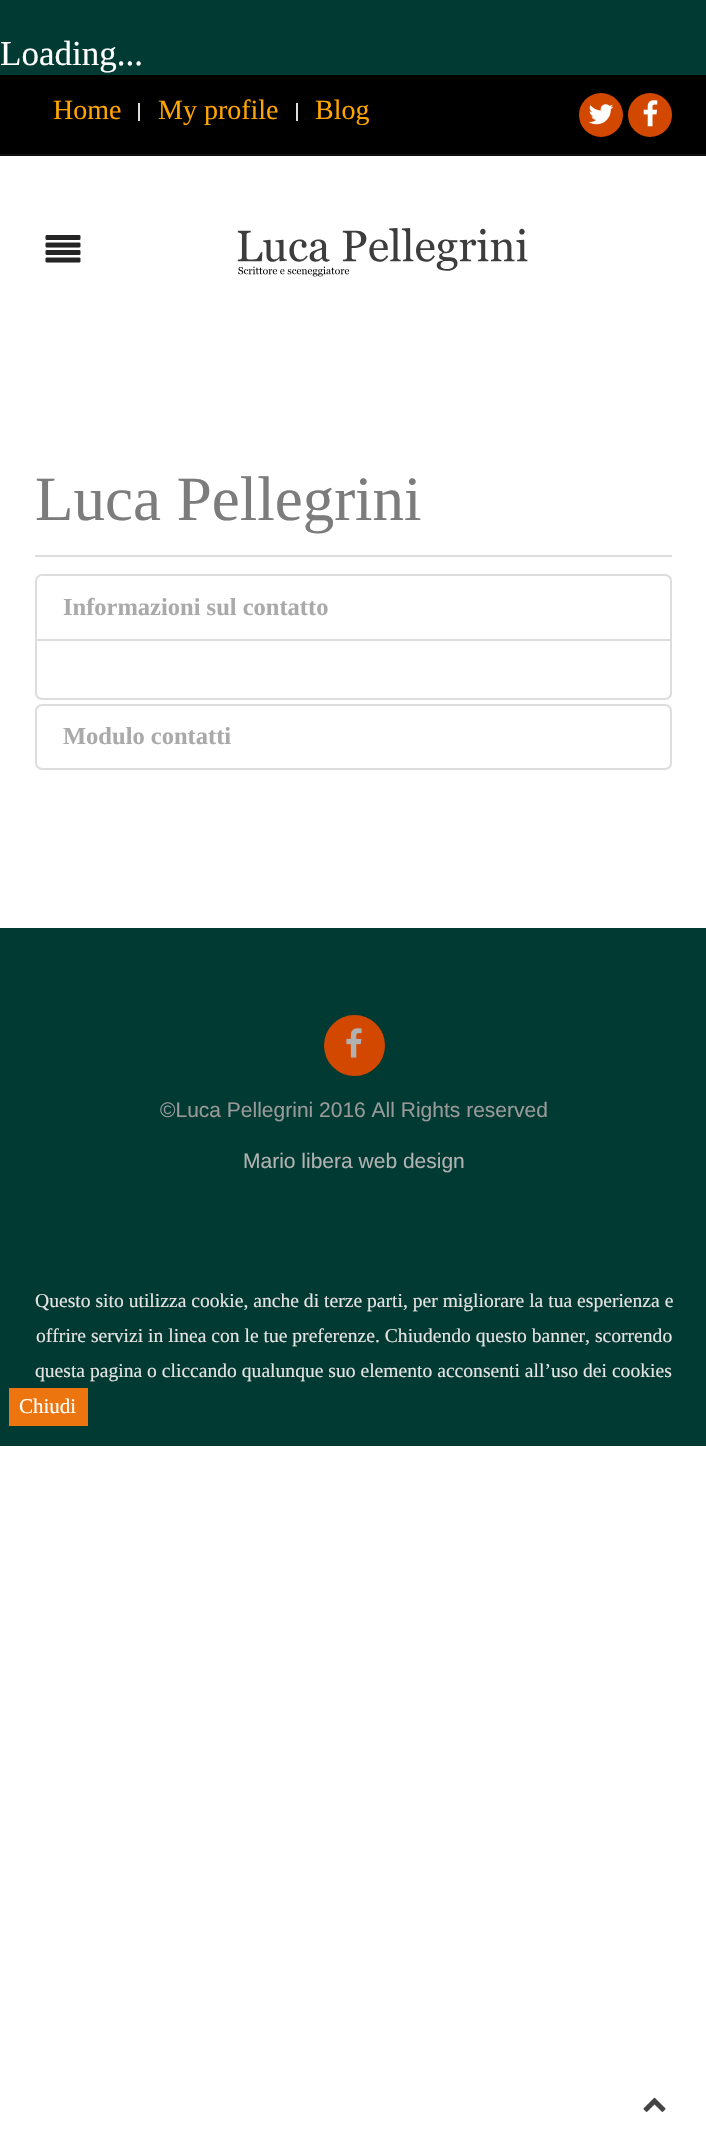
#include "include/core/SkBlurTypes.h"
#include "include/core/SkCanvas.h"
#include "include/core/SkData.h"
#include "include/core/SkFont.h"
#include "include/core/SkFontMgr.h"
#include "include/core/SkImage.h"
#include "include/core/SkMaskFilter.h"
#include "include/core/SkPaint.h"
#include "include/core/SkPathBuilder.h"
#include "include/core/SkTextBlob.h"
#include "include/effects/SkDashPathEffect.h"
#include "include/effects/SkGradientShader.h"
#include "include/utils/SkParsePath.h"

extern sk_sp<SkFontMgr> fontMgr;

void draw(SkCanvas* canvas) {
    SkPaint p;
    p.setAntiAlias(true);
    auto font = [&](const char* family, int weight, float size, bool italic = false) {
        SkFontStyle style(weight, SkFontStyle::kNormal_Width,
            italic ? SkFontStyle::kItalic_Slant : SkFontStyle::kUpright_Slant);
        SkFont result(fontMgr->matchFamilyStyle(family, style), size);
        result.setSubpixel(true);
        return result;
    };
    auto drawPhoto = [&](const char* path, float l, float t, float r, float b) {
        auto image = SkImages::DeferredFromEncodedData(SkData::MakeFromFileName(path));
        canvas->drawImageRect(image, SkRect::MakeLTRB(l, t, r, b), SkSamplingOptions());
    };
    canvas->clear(0xFFFFFFFF);
    p.setColor(0xFF013A33);
    canvas->drawRect(SkRect::MakeLTRB(0, 0, 706, 75), p);
    auto font1 = font("Liberation Serif", 400, 35);
    p.setColor(0xFFFFFFFF);
    canvas->drawString("Loading...", 0, 65, font1, p);
    p.setColor(0xFF000000);
    canvas->drawRect(SkRect::MakeLTRB(0, 75, 706, 154), p);
    p.setColor(0xFF111111);
    canvas->drawRect(SkRect::MakeLTRB(0, 154, 706, 156), p);
    auto font2 = font("Liberation Serif", 400, 28);
    p.setColor(0xFFFFA500);
    canvas->drawString("Home", 53, 119, font2, p);
    p.setColor(0xFFDDDDDD);
    canvas->drawRect(SkRect::MakeLTRB(138, 103, 140, 121), p);
    p.setColor(0xFFFFA500);
    canvas->drawString("My profile", 158, 119, font2, p);
    p.setColor(0xFFDDDDDD);
    canvas->drawRect(SkRect::MakeLTRB(296, 103, 298, 121), p);
    p.setColor(0xFFFFA500);
    canvas->drawString("Blog", 315, 119, font2, p);
    p.setColor(0xFFD24800);
    canvas->drawCircle(601, 115, 22, p);
    drawPhoto("media/1.png", 588, 104, 614, 125);
    canvas->drawCircle(650, 115, 22, p);
    drawPhoto("media/2.png", 643, 100, 658, 127);
    drawPhoto("media/3.png", 45, 235, 81, 263);
    drawPhoto("media/4.png", 237, 228, 528, 277);
    p.setColor(0xFFDDDDDD);
    canvas->drawRect(SkRect::MakeLTRB(35, 555, 672, 557), p);
    auto font3 = font("Liberation Serif", 400, 63);
    p.setColor(0xFF7C7C7C);
    canvas->drawString("Luca Pellegrini", 35, 520, font3, p);
    p.setStyle(SkPaint::kStroke_Style);
    p.setStrokeWidth(2);
    p.setColor(0xFFDDDDDD);
    canvas->drawRoundRect(SkRect::MakeLTRB(36, 575, 671, 699), 6, 6, p);
    auto font4 = font("Liberation Serif", 700, 24.5f);
    p.setStyle(SkPaint::kFill_Style);
    p.setColor(0xFFAAAAAA);
    canvas->drawString("Informazioni sul contatto", 63, 615, font4, p);
    p.setColor(0xFFDDDDDD);
    canvas->drawRect(SkRect::MakeLTRB(37, 639, 670, 641), p);
    p.setStyle(SkPaint::kStroke_Style);
    canvas->drawRoundRect(SkRect::MakeLTRB(36, 705, 671, 769), 6, 6, p);
    p.setStyle(SkPaint::kFill_Style);
    p.setColor(0xFFAAAAAA);
    canvas->drawString("Modulo contatti", 63, 744, font4, p);
    p.setColor(0xFF013A33);
    canvas->drawRect(SkRect::MakeLTRB(0, 928, 706, 1446), p);
    p.setColor(0xFFD24800);
    canvas->drawCircle(354.5f, 1045.5f, 30.5f, p);
    drawPhoto("media/5.png", 346, 1028, 362, 1058);
    auto font5 = font("Liberation Sans", 400, 21);
    p.setColor(0xFF999999);
    canvas->drawString("©Luca Pellegrini 2016 All Rights reserved", 160, 1117, font5, p);
    p.setColor(0xFFB1B1B1);
    canvas->drawString("Mario libera web design", 243, 1168, font5, p);
    auto font6 = font("Liberation Serif", 400, 19.6f);
    p.setColor(0xFFE6E3E3);
    {
        const struct { const char* s; float x, y; } items[] = {
            {"Questo sito utilizza cookie, anche di terze parti, per migliorare la tua esperienza e", 35, 1307},
            {"offrire servizi in linea con le tue preferenze. Chiudendo questo banner, scorrendo", 36, 1342},
            {"questa pagina o cliccando qualunque suo elemento acconsenti all’uso dei cookies", 35, 1377},
        };
        for (auto [s, x, y] : items) {
            canvas->drawString(s, x, y, font6, p);
        }
    }
    p.setColor(0xFFED750F);
    canvas->drawRect(SkRect::MakeLTRB(9, 1388, 88, 1426), p);
    auto font7 = font("Liberation Serif", 400, 21);
    p.setColor(0xFFFFFFFF);
    canvas->drawString("Chiudi", 19, 1413, font7, p);
    drawPhoto("media/6.png", 643, 2097, 666, 2112);
}
